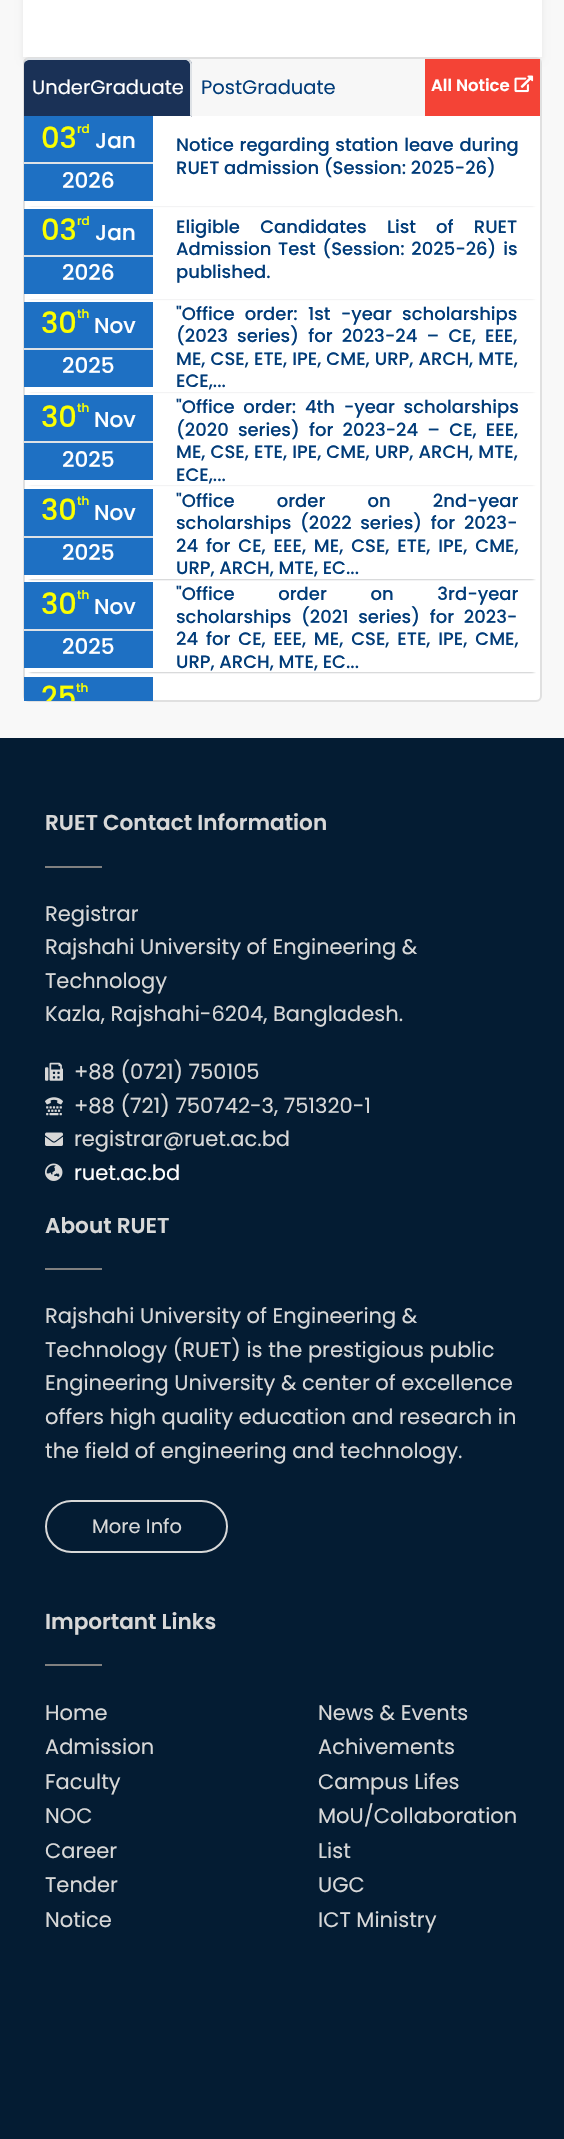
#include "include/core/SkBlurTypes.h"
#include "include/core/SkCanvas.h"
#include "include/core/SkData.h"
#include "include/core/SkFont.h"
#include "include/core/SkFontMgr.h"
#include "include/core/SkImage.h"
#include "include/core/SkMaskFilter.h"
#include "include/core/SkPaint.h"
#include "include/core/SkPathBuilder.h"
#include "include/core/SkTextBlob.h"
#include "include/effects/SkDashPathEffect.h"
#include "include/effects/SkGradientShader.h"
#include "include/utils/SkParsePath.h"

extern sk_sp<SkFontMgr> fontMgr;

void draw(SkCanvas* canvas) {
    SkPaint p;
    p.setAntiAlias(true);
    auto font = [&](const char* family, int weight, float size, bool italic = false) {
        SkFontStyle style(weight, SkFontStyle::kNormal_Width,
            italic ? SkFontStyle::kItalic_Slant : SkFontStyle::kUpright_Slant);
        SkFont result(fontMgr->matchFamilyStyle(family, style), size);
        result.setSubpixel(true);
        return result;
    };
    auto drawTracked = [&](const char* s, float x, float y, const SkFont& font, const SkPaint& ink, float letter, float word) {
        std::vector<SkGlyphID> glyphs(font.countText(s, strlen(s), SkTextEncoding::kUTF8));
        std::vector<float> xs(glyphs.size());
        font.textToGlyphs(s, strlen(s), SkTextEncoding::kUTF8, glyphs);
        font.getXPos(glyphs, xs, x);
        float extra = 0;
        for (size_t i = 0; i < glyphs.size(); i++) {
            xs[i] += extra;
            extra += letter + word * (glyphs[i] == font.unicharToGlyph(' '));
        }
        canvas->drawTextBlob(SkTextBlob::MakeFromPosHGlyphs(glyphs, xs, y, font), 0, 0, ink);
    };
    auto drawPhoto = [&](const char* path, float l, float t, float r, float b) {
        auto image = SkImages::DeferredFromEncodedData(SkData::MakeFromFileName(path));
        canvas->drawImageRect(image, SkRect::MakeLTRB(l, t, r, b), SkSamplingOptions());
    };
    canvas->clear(0xFFF8F8F8);
    p.setColor(0x12000000);
    p.setMaskFilter(SkMaskFilter::MakeBlur(kNormal_SkBlurStyle, 3));
    canvas->drawRect(SkRect::MakeLTRB(23, -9, 542, 60), p);
    p.setMaskFilter(nullptr);
    p.setColor(0xFFFFFFFF);
    canvas->drawRect(SkRect::MakeLTRB(23, 0, 542, 57), p);
    canvas->drawRoundRect(SkRect::MakeLTRB(23, 57, 542, 702), 6, 6, p);
    p.setStyle(SkPaint::kStroke_Style);
    p.setStrokeWidth(2);
    p.setColor(0x1F000000);
    canvas->drawRoundRect(SkRect::MakeLTRB(24, 58, 541, 701), 5, 5, p);
    p.setStyle(SkPaint::kFill_Style);
    p.setColor(0x08000000);
    canvas->drawRect(SkRect::MakeLTRB(24, 59, 425, 116), p);
    p.setColor(0xFF1A3156);
    canvas->drawPath(SkPathBuilder().moveTo(30, 59).lineTo(186, 59).cubicTo(189.5f, 59, 192, 61.5f, 192, 65).lineTo(192, 117).lineTo(24, 117).lineTo(24, 65).cubicTo(24, 61.5f, 26.5f, 59, 30, 59).close().detach(), p);
    p.setColor(0xFFDEE2E6);
    canvas->drawPath(SkPathBuilder().moveTo(30, 60).cubicTo(27, 60, 24, 62, 24, 64).cubicTo(24, 62, 26, 59, 28, 58).lineTo(188, 58).lineTo(190, 60).lineTo(189, 62).cubicTo(188, 61, 187, 60, 186, 60).close().detach(), p);
    canvas->drawPath(SkPathBuilder().moveTo(190, 115).lineTo(190, 64).lineTo(189, 62).lineTo(190, 60).cubicTo(191, 61, 192, 63, 192, 64).lineTo(192, 117).close().detach(), p);
    p.setColor(0xFFFFFFFF);
    canvas->drawPath(SkPathBuilder().moveTo(192, 117).lineTo(190, 115).lineTo(190, 116).lineTo(24, 116).lineTo(24, 117).close().detach(), p);
    auto font1 = font("Poppins", 400, 19.5f);
    canvas->drawString("UnderGraduate", 32, 94, font1, p);
    p.setColor(0xFF013C79);
    canvas->drawString("PostGraduate", 201, 94, font1, p);
    p.setColor(0xFFF44336);
    canvas->drawRect(SkRect::MakeLTRB(425, 59, 540, 116), p);
    auto font2 = font("Poppins", 600, 16.5f);
    p.setColor(0xFFFFFFFF);
    canvas->drawString("All Notice", 431, 91, font2, p);
    drawPhoto("media/1.png", 514, 75, 534, 93);
    canvas->save();
    canvas->clipPath(SkPathBuilder(SkPathFillType::kEvenOdd).moveTo(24, 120).lineTo(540, 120).lineTo(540, 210).lineTo(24, 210).close().moveTo(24, 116).lineTo(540, 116).lineTo(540, 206).lineTo(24, 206).close().detach(), true);
    p.setColor(0xFF212529);
    p.setMaskFilter(SkMaskFilter::MakeBlur(kNormal_SkBlurStyle, 1.5f));
    canvas->drawRect(SkRect::MakeLTRB(30, 126, 534, 204), p);
    p.setMaskFilter(nullptr);
    canvas->restore();
    p.setColor(0xFF1E70C3);
    canvas->drawRect(SkRect::MakeLTRB(24, 116, 153, 201), p);
    p.setColor(0xFFDEE2E6);
    canvas->drawRect(SkRect::MakeLTRB(24, 162, 153, 164), p);
    auto font3 = font("Poppins", 500, 29);
    p.setColor(0xFFFBFF00);
    canvas->drawString("03", 41, 148, font3, p);
    auto font4 = font("Poppins", 500, 12);
    canvas->drawString("rd", 77, 133, font4, p);
    auto font5 = font("Poppins", 500, 21.6f);
    p.setColor(0xFFFFFFFF);
    canvas->drawString("Jan", 95, 148, font5, p);
    canvas->drawString("2026", 62, 188, font5, p);
    auto font6 = font("Poppins", 500, 18);
    p.setColor(0xFF013C79);
    drawTracked("Notice regarding station leave during", 176, 151, font6, p, 0, 1);
    canvas->drawString("RUET admission (Session: 2025-26)", 176, 174, font6, p);
    canvas->save();
    canvas->clipPath(SkPathBuilder(SkPathFillType::kEvenOdd).moveTo(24, 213).lineTo(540, 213).lineTo(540, 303).lineTo(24, 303).close().moveTo(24, 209).lineTo(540, 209).lineTo(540, 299).lineTo(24, 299).close().detach(), true);
    p.setColor(0xFF212529);
    p.setMaskFilter(SkMaskFilter::MakeBlur(kNormal_SkBlurStyle, 1.5f));
    canvas->drawRect(SkRect::MakeLTRB(30, 219, 534, 297), p);
    p.setMaskFilter(nullptr);
    canvas->restore();
    p.setColor(0xFF1E70C3);
    canvas->drawRect(SkRect::MakeLTRB(24, 209, 153, 294), p);
    p.setColor(0xFFDEE2E6);
    canvas->drawRect(SkRect::MakeLTRB(24, 255, 153, 257), p);
    p.setColor(0xFFFBFF00);
    canvas->drawString("03", 41, 240, font3, p);
    canvas->drawString("rd", 77, 225, font4, p);
    p.setColor(0xFFFFFFFF);
    canvas->drawString("Jan", 95, 240, font5, p);
    canvas->drawString("2026", 62, 280, font5, p);
    p.setColor(0xFF013C79);
    drawTracked("Eligible Candidates List of RUET", 176, 233, font6, p, 0, 15.5f);
    drawTracked("Admission Test (Session: 2025-26) is", 176, 255, font6, p, 0, 2);
    canvas->drawString("published.", 176, 278, font6, p);
    canvas->save();
    canvas->clipPath(SkPathBuilder(SkPathFillType::kEvenOdd).moveTo(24, 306).lineTo(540, 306).lineTo(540, 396).lineTo(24, 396).close().moveTo(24, 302).lineTo(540, 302).lineTo(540, 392).lineTo(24, 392).close().detach(), true);
    p.setColor(0xFF212529);
    p.setMaskFilter(SkMaskFilter::MakeBlur(kNormal_SkBlurStyle, 1.5f));
    canvas->drawRect(SkRect::MakeLTRB(30, 312, 534, 390), p);
    p.setMaskFilter(nullptr);
    canvas->restore();
    p.setColor(0xFF1E70C3);
    canvas->drawRect(SkRect::MakeLTRB(24, 302, 153, 387), p);
    p.setColor(0xFFDEE2E6);
    canvas->drawRect(SkRect::MakeLTRB(24, 348, 153, 350), p);
    p.setColor(0xFFFBFF00);
    canvas->drawString("30", 41, 333, font3, p);
    canvas->drawString("th", 77, 318, font4, p);
    p.setColor(0xFFFFFFFF);
    canvas->drawString("Nov", 94, 333, font5, p);
    canvas->drawString("2025", 62, 373, font5, p);
    p.setColor(0xFF013C79);
    drawTracked("\"Office order: 1st -year scholarships", 176, 320, font6, p, 0, 5.5f);
    drawTracked("(2023 series) for 2023-24 – CE, EEE,", 176, 342, font6, p, 0, 4.5f);
    drawTracked("ME, CSE, ETE, IPE, CME, URP, ARCH, MTE,", 176, 365, font6, p, 0, 0.5f);
    canvas->drawString("ECE,...", 176, 387, font6, p);
    canvas->save();
    canvas->clipPath(SkPathBuilder(SkPathFillType::kEvenOdd).moveTo(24, 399).lineTo(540, 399).lineTo(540, 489).lineTo(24, 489).close().moveTo(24, 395).lineTo(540, 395).lineTo(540, 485).lineTo(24, 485).close().detach(), true);
    p.setColor(0xFF212529);
    p.setMaskFilter(SkMaskFilter::MakeBlur(kNormal_SkBlurStyle, 1.5f));
    canvas->drawRect(SkRect::MakeLTRB(30, 405, 534, 483), p);
    p.setMaskFilter(nullptr);
    canvas->restore();
    p.setColor(0xFF1E70C3);
    canvas->drawRect(SkRect::MakeLTRB(24, 395, 153, 480), p);
    p.setColor(0xFFDEE2E6);
    canvas->drawRect(SkRect::MakeLTRB(24, 441, 153, 443), p);
    p.setColor(0xFFFBFF00);
    canvas->drawString("30", 41, 427, font3, p);
    canvas->drawString("th", 77, 412, font4, p);
    p.setColor(0xFFFFFFFF);
    canvas->drawString("Nov", 94, 427, font5, p);
    canvas->drawString("2025", 62, 467, font5, p);
    p.setColor(0xFF013C79);
    drawTracked("\"Office order: 4th -year scholarships", 176, 413, font6, p, 0, 4);
    drawTracked("(2020 series) for 2023-24 – CE, EEE,", 176, 436, font6, p, 0, 4.5f);
    drawTracked("ME, CSE, ETE, IPE, CME, URP, ARCH, MTE,", 176, 458, font6, p, 0, 0.5f);
    canvas->drawString("ECE,...", 176, 481, font6, p);
    canvas->save();
    canvas->clipRect(SkRect::MakeLTRB(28, 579, 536, 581));
    p.setColor(0xFF212529);
    p.setMaskFilter(SkMaskFilter::MakeBlur(kNormal_SkBlurStyle, 1.5f));
    canvas->drawRect(SkRect::MakeLTRB(30, 500, 534, 578), p);
    p.setMaskFilter(nullptr);
    canvas->restore();
    p.setColor(0xFF1E70C3);
    canvas->drawRect(SkRect::MakeLTRB(24, 489, 153, 575), p);
    p.setColor(0xFFDEE2E6);
    canvas->drawRect(SkRect::MakeLTRB(24, 536, 153, 538), p);
    p.setColor(0xFFFBFF00);
    canvas->drawString("30", 41, 520, font3, p);
    canvas->drawString("th", 77, 505, font4, p);
    p.setColor(0xFFFFFFFF);
    canvas->drawString("Nov", 94, 520, font5, p);
    canvas->drawString("2025", 62, 560, font5, p);
    p.setColor(0xFF013C79);
    drawTracked("\"Office order on 2nd-year", 176, 507, font6, p, 0, 37.5f);
    drawTracked("scholarships (2022 series) for 2023-", 176, 529, font6, p, 0, 4);
    drawTracked("24 for CE, EEE, ME, CSE, ETE, IPE, CME,", 176, 552, font6, p, 0, 3.25f);
    canvas->drawString("URP, ARCH, MTE, EC...", 176, 574, font6, p);
    canvas->save();
    canvas->clipRect(SkRect::MakeLTRB(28, 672, 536, 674));
    p.setColor(0xFF212529);
    p.setMaskFilter(SkMaskFilter::MakeBlur(kNormal_SkBlurStyle, 1.5f));
    canvas->drawRect(SkRect::MakeLTRB(30, 593, 534, 671), p);
    p.setMaskFilter(nullptr);
    canvas->restore();
    p.setColor(0xFF1E70C3);
    canvas->drawRect(SkRect::MakeLTRB(24, 582, 153, 668), p);
    p.setColor(0xFFDEE2E6);
    canvas->drawRect(SkRect::MakeLTRB(24, 629, 153, 631), p);
    p.setColor(0xFFFBFF00);
    canvas->drawString("30", 41, 614, font3, p);
    canvas->drawString("th", 77, 599, font4, p);
    p.setColor(0xFFFFFFFF);
    canvas->drawString("Nov", 94, 614, font5, p);
    canvas->drawString("2025", 62, 654, font5, p);
    p.setColor(0xFF013C79);
    drawTracked("\"Office order on 3rd-year", 176, 600, font6, p, 0, 39);
    drawTracked("scholarships (2021 series) for 2023-", 176, 623, font6, p, 0, 5);
    drawTracked("24 for CE, EEE, ME, CSE, ETE, IPE, CME,", 176, 645, font6, p, 0, 3.25f);
    canvas->drawString("URP, ARCH, MTE, EC...", 176, 668, font6, p);
    p.setColor(0xFF1E70C3);
    canvas->drawRect(SkRect::MakeLTRB(24, 677, 153, 701), p);
    canvas->save();
    canvas->clipRect(SkRect::MakeLTRB(24, 677, 153, 701));
    p.setColor(0xFFFBFF00);
    canvas->drawString("25", 41, 707, font3, p);
    canvas->restore();
    canvas->drawString("th", 76, 692, font4, p);
    p.setColor(0xFF041C33);
    canvas->drawRect(SkRect::MakeLTRB(0, 738, 564, 2139), p);
    auto font7 = font("Poppins", 600, 21.6f);
    p.setColor(0xFFD8D8D8);
    canvas->drawString("RUET Contact Information", 45, 830, font7, p);
    p.setColor(0xFF808080);
    canvas->drawRect(SkRect::MakeLTRB(45, 866, 102, 868), p);
    auto font8 = font("Poppins", 400, 21);
    p.setColor(0xFFD8D8D8);
    {
        const struct { const char* s; float x, y; } items[] = {
            {"Registrar", 45, 921},
            {"Rajshahi University of Engineering &", 45, 954},
            {"Technology", 45, 988},
            {"Kazla, Rajshahi-6204, Bangladesh.", 45, 1021},
        };
        for (auto [s, x, y] : items) {
            canvas->drawString(s, x, y, font8, p);
        }
    }
    drawPhoto("media/2.png", 45, 1062, 63, 1081);
    canvas->drawString("+88 (0721) 750105", 74, 1079, font8, p);
    drawPhoto("media/3.png", 45, 1097, 63, 1116);
    canvas->drawString("+88 (721) 750742-3, 751320-1", 74, 1113, font8, p);
    drawPhoto("media/4.png", 45, 1132, 63, 1146);
    canvas->drawString("registrar@ruet.ac.bd", 74, 1146, font8, p);
    drawPhoto("media/5.png", 45, 1163, 63, 1181);
    p.setColor(0xFFFFFFFF);
    canvas->drawString("ruet.ac.bd", 74, 1180, font8, p);
    p.setColor(0xFFD8D8D8);
    canvas->drawString("About RUET", 45, 1233, font7, p);
    p.setColor(0xFF808080);
    canvas->drawRect(SkRect::MakeLTRB(45, 1268, 102, 1270), p);
    p.setColor(0xFFD8D8D8);
    {
        const struct { const char* s; float x, y; } items[] = {
            {"Rajshahi University of Engineering &", 45, 1323},
            {"Technology (RUET) is the prestigious public", 45, 1357},
            {"Engineering University & center of excellence", 45, 1390},
            {"offers high quality education and research in", 45, 1424},
            {"the field of engineering and technology.", 45, 1458},
        };
        for (auto [s, x, y] : items) {
            canvas->drawString(s, x, y, font8, p);
        }
    }
    p.setStyle(SkPaint::kStroke_Style);
    canvas->drawRoundRect(SkRect::MakeLTRB(46, 1501, 227, 1552), 25.5f, 25.5f, p);
    p.setStyle(SkPaint::kFill_Style);
    canvas->drawString("More Info", 92, 1533, font1, p);
    canvas->drawString("Important Links", 45, 1629, font7, p);
    p.setColor(0xFF808080);
    canvas->drawRect(SkRect::MakeLTRB(45, 1664, 102, 1666), p);
    p.setColor(0xFFD8D8D8);
    {
        const struct { const char* s; float x, y; } items[] = {
            {"Home", 45, 1720},
            {"Admission", 45, 1754},
            {"Faculty", 45, 1789},
            {"NOC", 45, 1823},
            {"Career", 45, 1858},
            {"Tender", 45, 1892},
            {"Notice", 45, 1927},
            {"News & Events", 318, 1720},
            {"Achivements", 318, 1754},
            {"Campus Lifes", 318, 1789},
            {"MoU/Collaboration", 318, 1823},
            {"List", 318, 1858},
            {"UGC", 318, 1892},
            {"ICT Ministry", 318, 1927},
        };
        for (auto [s, x, y] : items) {
            canvas->drawString(s, x, y, font8, p);
        }
    }
}
